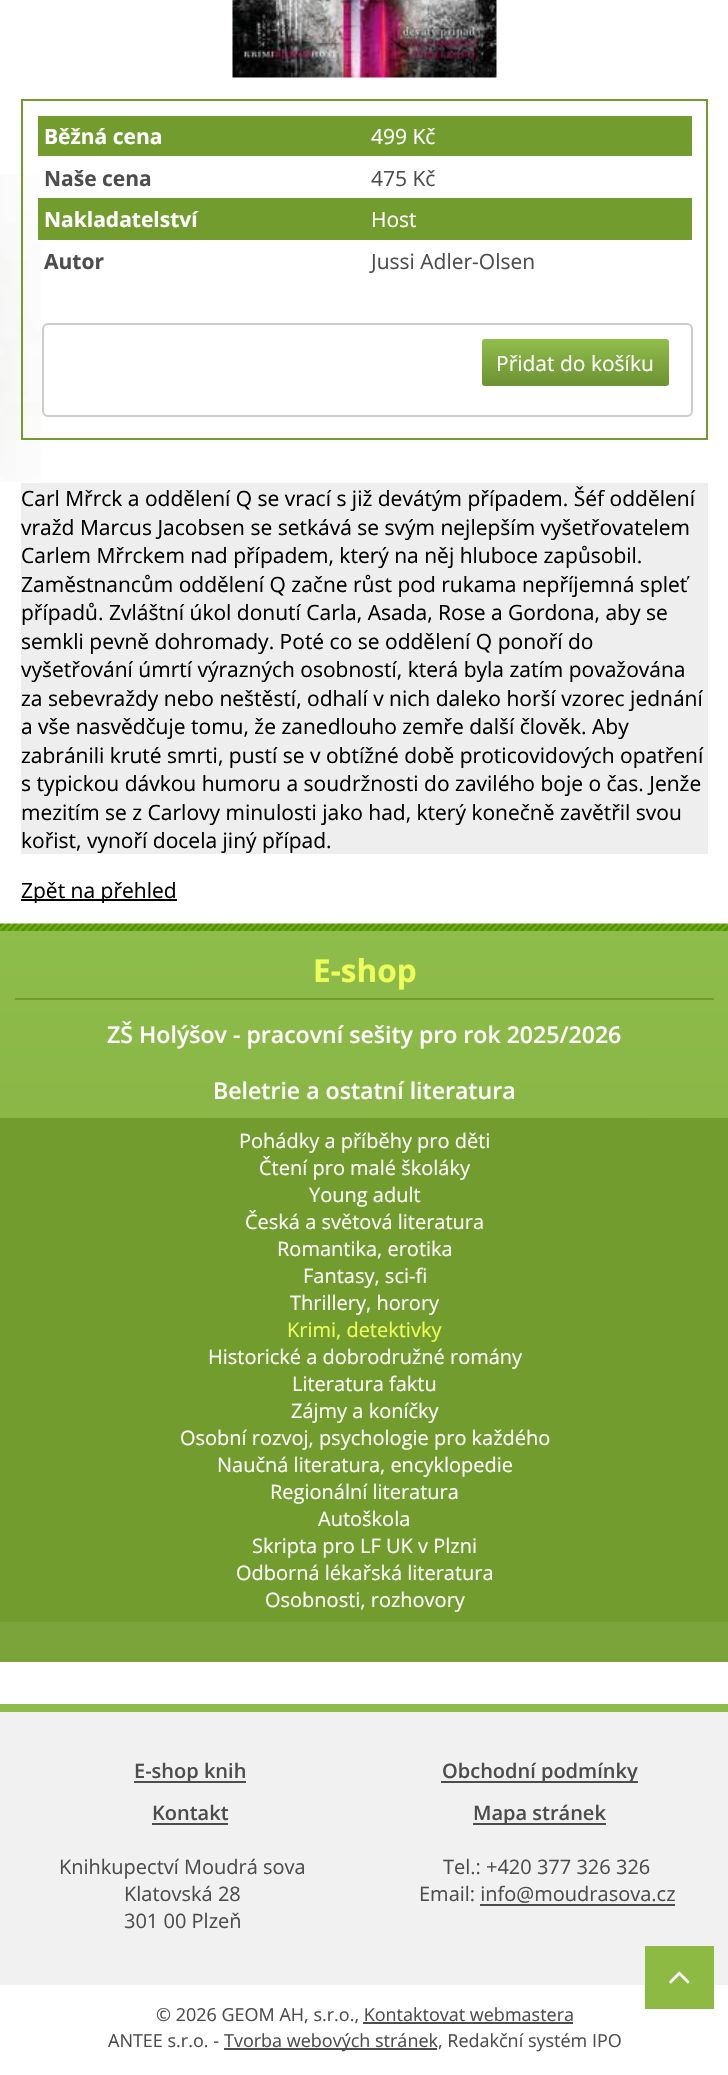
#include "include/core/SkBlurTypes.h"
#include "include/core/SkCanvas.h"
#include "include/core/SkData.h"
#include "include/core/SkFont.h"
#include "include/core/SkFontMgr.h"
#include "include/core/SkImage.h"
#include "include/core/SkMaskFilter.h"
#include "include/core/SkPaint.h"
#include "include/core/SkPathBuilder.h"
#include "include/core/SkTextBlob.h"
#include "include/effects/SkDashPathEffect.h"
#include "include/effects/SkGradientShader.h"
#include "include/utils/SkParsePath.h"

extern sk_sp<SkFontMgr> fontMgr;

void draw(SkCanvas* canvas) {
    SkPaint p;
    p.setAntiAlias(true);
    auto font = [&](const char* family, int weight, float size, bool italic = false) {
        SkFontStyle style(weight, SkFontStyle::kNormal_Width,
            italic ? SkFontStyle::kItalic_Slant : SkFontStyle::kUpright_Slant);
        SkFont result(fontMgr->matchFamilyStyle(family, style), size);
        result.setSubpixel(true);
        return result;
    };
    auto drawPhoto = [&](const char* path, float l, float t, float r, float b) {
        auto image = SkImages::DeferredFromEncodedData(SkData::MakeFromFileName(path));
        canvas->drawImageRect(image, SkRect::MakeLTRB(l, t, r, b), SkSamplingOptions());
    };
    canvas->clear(0xFFFFFFFF);
    drawPhoto("media/1.png", 0, 174, 41, 482);
    drawPhoto("media/2.png", 232, 0, 497, 78);
    p.setStyle(SkPaint::kStroke_Style);
    p.setStrokeWidth(2);
    p.setColor(0xFF729D2E);
    canvas->drawRect(SkRect::MakeLTRB(22, 100, 707, 439), p);
    p.setStyle(SkPaint::kFill_Style);
    canvas->drawRect(SkRect::MakeLTRB(38, 116, 692, 156), p);
    auto font1 = font("Open Sans", 700, 21);
    p.setColor(0xFFFFFFFF);
    canvas->drawString("Běžná cena", 44, 144, font1, p);
    auto font2 = font("Open Sans", 400, 21);
    canvas->drawString("499 Kč", 371, 144, font2, p);
    p.setColor(0xFF4D4D4D);
    canvas->drawString("Naše cena", 44, 186, font1, p);
    canvas->drawString("475 Kč", 371, 186, font2, p);
    p.setColor(0xFF729D2E);
    canvas->drawRect(SkRect::MakeLTRB(38, 198, 692, 240), p);
    p.setColor(0xFFFFFFFF);
    canvas->drawString("Nakladatelství", 44, 227, font1, p);
    canvas->drawString("Host", 371, 227, font2, p);
    p.setColor(0xFF4D4D4D);
    canvas->drawString("Autor", 44, 269, font1, p);
    canvas->drawString("Jussi Adler-Olsen", 371, 269, font2, p);
    p.setStyle(SkPaint::kStroke_Style);
    p.setColor(0xFFCCCCCC);
    canvas->drawRoundRect(SkRect::MakeLTRB(43, 324, 692, 416), 5, 5, p);
    p.setStyle(SkPaint::kFill_Style);
    {
        const SkColor colors[] = {0xFF90BE4B, 0xFF6C9133};
        const float stops[] = {0, 1};
        const SkPoint ends[] = {{482, 339}, {482, 386}};
        p.setShader(SkGradientShader::MakeLinear(ends, colors, stops, 2, SkTileMode::kClamp));
        p.setAlpha(255);
    }
    canvas->drawRoundRect(SkRect::MakeLTRB(482, 339, 669, 386), 3, 3, p);
    p.setShader(nullptr);
    p.setColor(0xFFFFFFFF);
    canvas->drawString("Přidat do košíku", 496, 371, font2, p);
    p.setColor(0xFFEEEEEE);
    canvas->drawRect(SkRect::MakeLTRB(21, 483, 708, 854), p);
    p.setColor(0xFF000000);
    {
        const struct { const char* s; float x, y; } items[] = {
            {"Carl Mřrck a oddělení Q se vrací s již devátým případem. Šéf oddělení", 21, 506},
            {"vražd Marcus Jacobsen se setkává se svým nejlepším vyšetřovatelem", 21, 535},
            {"Carlem Mřrckem nad případem, který na něj hluboce zapůsobil.", 21, 563},
            {"Zaměstnancům oddělení Q začne růst pod rukama nepříjemná spleť", 21, 592},
            {"případů. Zvláštní úkol donutí Carla, Asada, Rose a Gordona, aby se", 21, 620},
            {"semkli pevně dohromady. Poté co se oddělení Q ponoří do", 21, 649},
            {"vyšetřování úmrtí výrazných osobností, která byla zatím považována", 21, 677},
            {"za sebevraždy nebo neštěstí, odhalí v nich daleko horší vzorec jednání", 21, 706},
            {"a vše nasvědčuje tomu, že zanedlouho zemře další člověk. Aby", 21, 734},
            {"zabránili kruté smrti, pustí se v obtížné době proticovidových opatření", 21, 763},
            {"s typickou dávkou humoru a soudržnosti do zavilého boje o čas. Jenže", 21, 791},
            {"mezitím se z Carlovy minulosti jako had, který konečně zavětřil svou", 21, 820},
            {"kořist, vynoří docela jiný případ.", 21, 848},
        };
        for (auto [s, x, y] : items) {
            canvas->drawString(s, x, y, font2, p);
        }
    }
    canvas->drawRect(SkRect::MakeLTRB(21, 899, 177, 901), p);
    canvas->drawString("Zpět na přehled", 21, 898, font2, p);
    {
        const SkColor colors[] = {0xFF8FBD4B, 0xFF7AA439};
        const float stops[] = {0, 1};
        const SkPoint ends[] = {{364, 924}, {365, 1662}};
        p.setShader(SkGradientShader::MakeLinear(ends, colors, stops, 2, SkTileMode::kClamp));
        p.setAlpha(255);
    }
    canvas->drawRect(SkRect::MakeLTRB(0, 931, 728, 1662), p);
    drawPhoto("media/3.png", 0, 923, 728, 931);
    p.setShader(nullptr);
    p.setColor(0xFF729D2E);
    canvas->drawRect(SkRect::MakeLTRB(15, 998, 714, 1000), p);
    auto font3 = font("Open Sans", 700, 31.5f);
    p.setColor(0xFFEEFF5B);
    canvas->drawString("E-shop", 313, 982, font3, p);
    auto font4 = font("Open Sans", 600, 23.1f);
    p.setColor(0xFFFFFFFF);
    canvas->drawString("ZŠ Holýšov - pracovní sešity pro rok 2025/2026", 107, 1043, font4, p);
    canvas->drawString("Beletrie a ostatní literatura", 213, 1099, font4, p);
    p.setColor(0xFF729D2E);
    canvas->drawRect(SkRect::MakeLTRB(0, 1118, 728, 1622), p);
    auto font5 = font("Open Sans", 400, 20);
    p.setColor(0xFFFFFFFF);
    {
        const struct { const char* s; float x, y; } items[] = {
            {"Pohádky a příběhy pro děti", 239, 1148},
            {"Čtení pro malé školáky", 259, 1175},
            {"Young adult", 309, 1202},
            {"Česká a světová literatura", 245, 1229},
            {"Romantika, erotika", 277, 1256},
            {"Fantasy, sci-fi", 303, 1283},
            {"Thrillery, horory", 290, 1310},
        };
        for (auto [s, x, y] : items) {
            canvas->drawString(s, x, y, font5, p);
        }
    }
    p.setColor(0xFFEEFF5B);
    canvas->drawString("Krimi, detektivky", 287, 1337, font5, p);
    p.setColor(0xFFFFFFFF);
    {
        const struct { const char* s; float x, y; } items[] = {
            {"Historické a dobrodružné romány", 208, 1364},
            {"Literatura faktu", 292, 1391},
            {"Zájmy a koníčky", 291, 1418},
            {"Osobní rozvoj, psychologie pro každého", 180, 1445},
            {"Naučná literatura, encyklopedie", 217, 1472},
            {"Regionální literatura", 270, 1499},
            {"Autoškola", 318, 1526},
            {"Skripta pro LF UK v Plzni", 252, 1553},
            {"Odborná lékařská literatura", 236, 1580},
            {"Osobnosti, rozhovory", 265, 1607},
        };
        for (auto [s, x, y] : items) {
            canvas->drawString(s, x, y, font5, p);
        }
    }
    p.setColor(0xFFF1F1F1);
    canvas->drawRect(SkRect::MakeLTRB(0, 1712, 728, 1985), p);
    p.setColor(0xFF8DBA42);
    canvas->drawRect(SkRect::MakeLTRB(645, 1946, 714, 2009), p);
    drawPhoto("media/4.png", 669, 1971, 690, 1984);
    p.setColor(0xFF8EBC4A);
    canvas->drawRect(SkRect::MakeLTRB(0, 1704, 728, 1712), p);
    p.setColor(0xFF4D4D4D);
    canvas->drawRect(SkRect::MakeLTRB(134, 1781, 246, 1783), p);
    auto font6 = font("Open Sans", 600, 20);
    canvas->drawString("E-shop knih", 134, 1778, font6, p);
    canvas->drawRect(SkRect::MakeLTRB(441, 1781, 638, 1783), p);
    canvas->drawString("Obchodní podmínky", 442, 1778, font6, p);
    canvas->drawString("Kontakt", 152, 1820, font6, p);
    canvas->drawRect(SkRect::MakeLTRB(152, 1823, 228, 1825), p);
    canvas->drawRect(SkRect::MakeLTRB(473, 1823, 606, 1825), p);
    canvas->drawString("Mapa stránek", 473, 1820, font6, p);
    {
        const struct { const char* s; float x, y; } items[] = {
            {"Knihkupectví Moudrá sova", 59, 1874},
            {"Klatovská 28", 124, 1901},
            {"301 00 Plzeň", 124, 1928},
            {"Tel.: +420 377 326 326", 443, 1874},
            {"Email: info@moudrasova.cz", 419, 1901},
        };
        for (auto [s, x, y] : items) {
            canvas->drawString(s, x, y, font5, p);
        }
    }
    canvas->drawRect(SkRect::MakeLTRB(480, 1904, 675, 1906), p);
    auto font7 = font("Open Sans", 400, 18);
    canvas->drawString("© 2026 GEOM AH, s.r.o., Kontaktovat webmastera", 156, 2021, font7, p);
    canvas->drawRect(SkRect::MakeLTRB(363, 2022, 573, 2024), p);
    canvas->drawString("ANTEE s.r.o. -", 108, 2047, font7, p);
    canvas->drawRect(SkRect::MakeLTRB(224, 2048, 437, 2050), p);
    canvas->drawString("Tvorba webových stránek, Redakční systém IPO", 224, 2047, font7, p);
}
